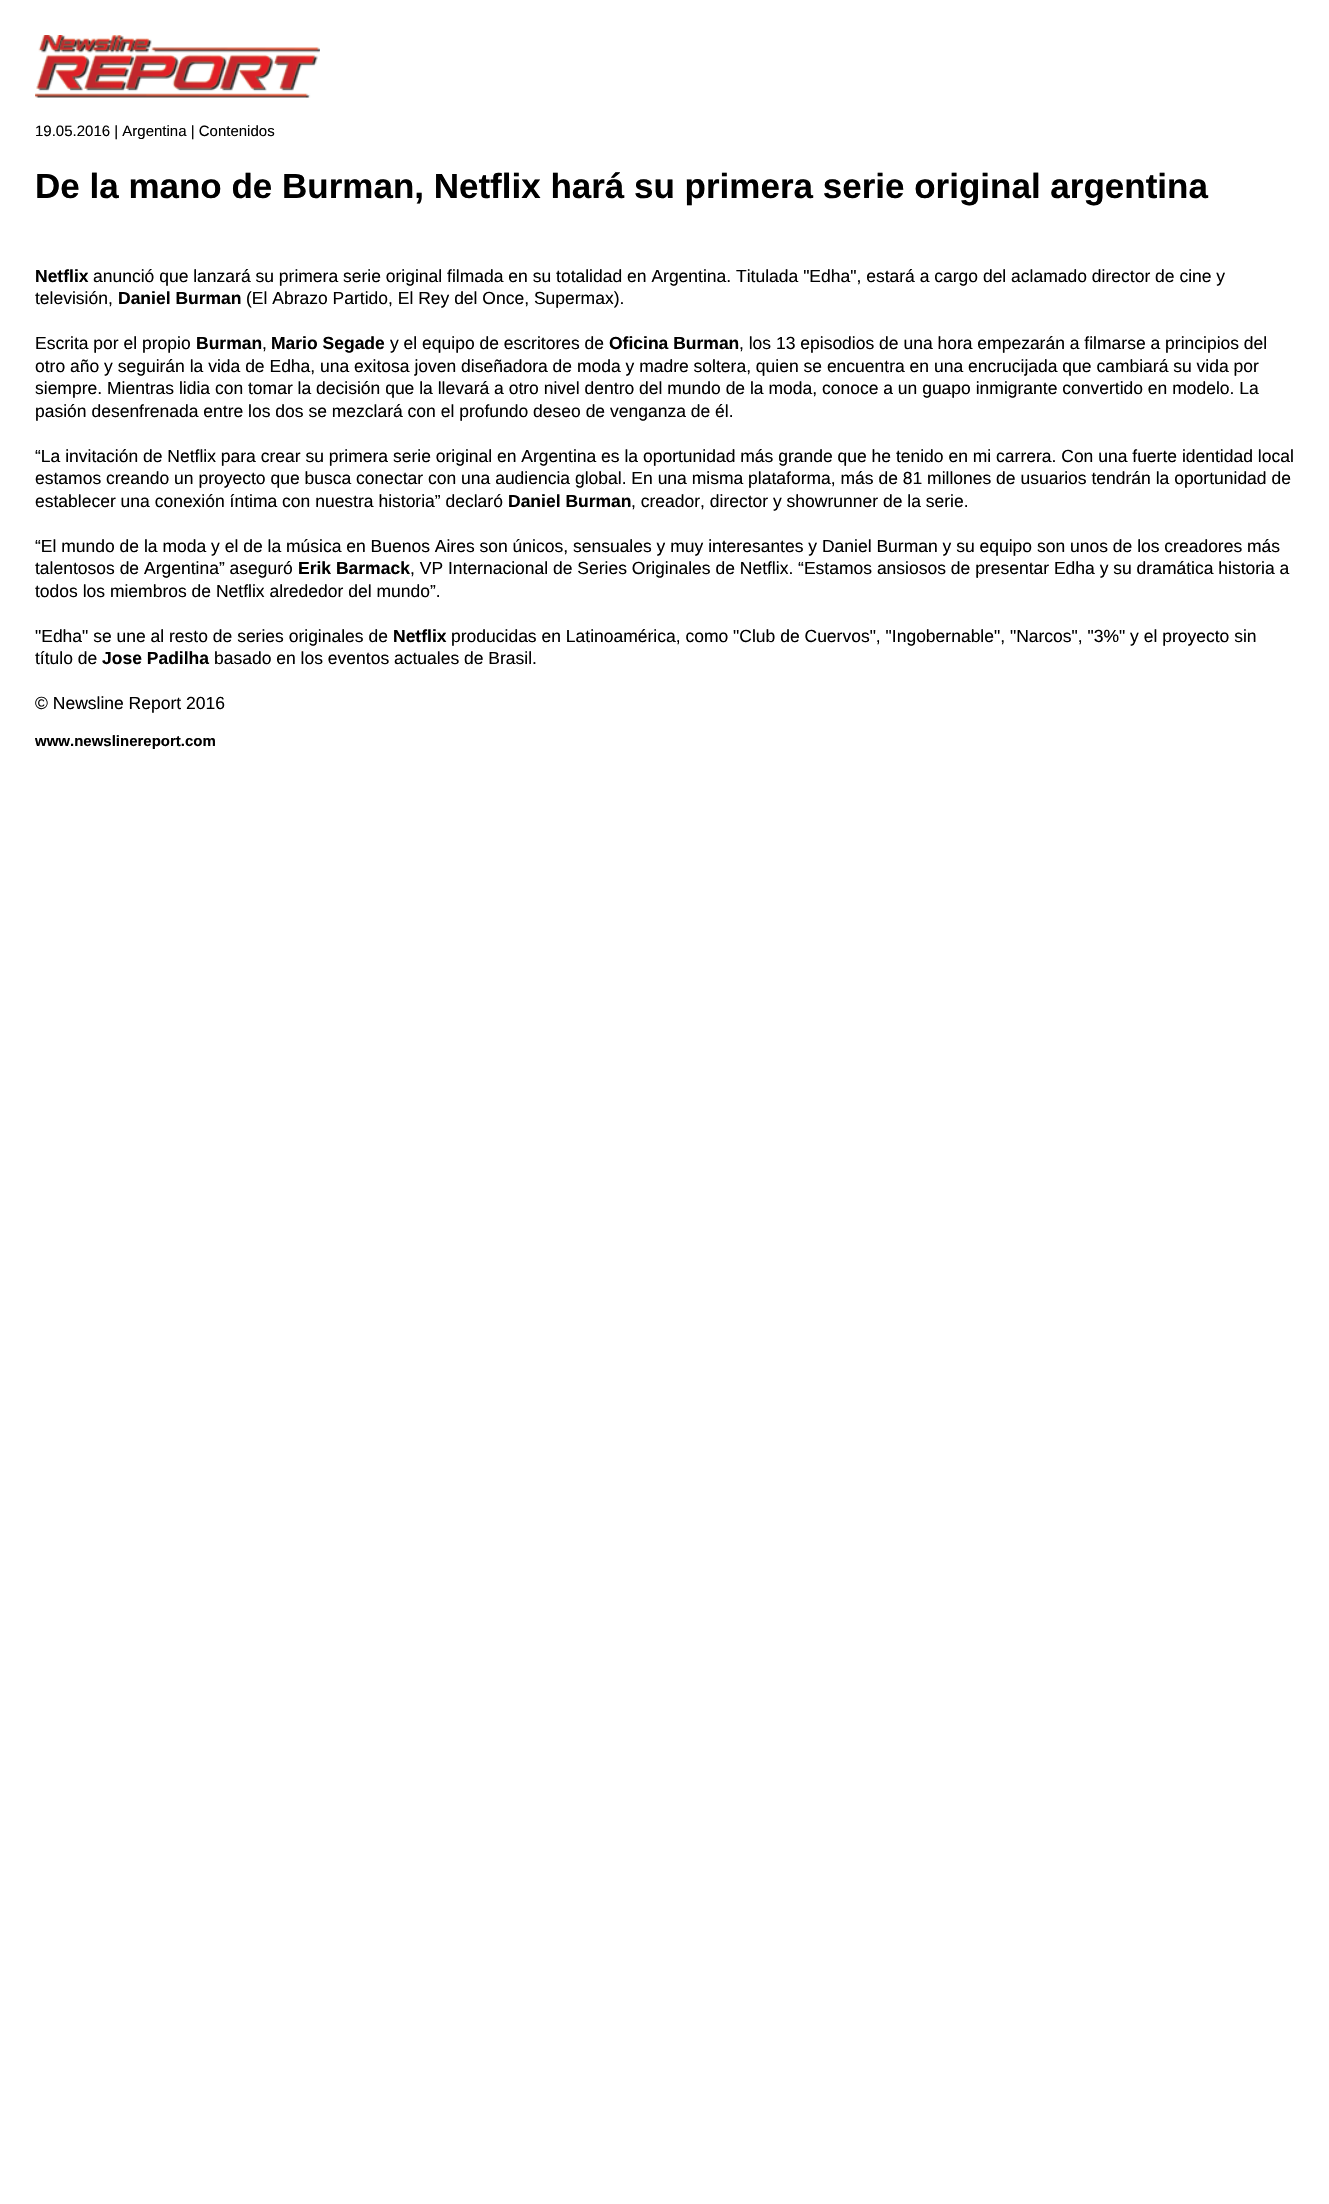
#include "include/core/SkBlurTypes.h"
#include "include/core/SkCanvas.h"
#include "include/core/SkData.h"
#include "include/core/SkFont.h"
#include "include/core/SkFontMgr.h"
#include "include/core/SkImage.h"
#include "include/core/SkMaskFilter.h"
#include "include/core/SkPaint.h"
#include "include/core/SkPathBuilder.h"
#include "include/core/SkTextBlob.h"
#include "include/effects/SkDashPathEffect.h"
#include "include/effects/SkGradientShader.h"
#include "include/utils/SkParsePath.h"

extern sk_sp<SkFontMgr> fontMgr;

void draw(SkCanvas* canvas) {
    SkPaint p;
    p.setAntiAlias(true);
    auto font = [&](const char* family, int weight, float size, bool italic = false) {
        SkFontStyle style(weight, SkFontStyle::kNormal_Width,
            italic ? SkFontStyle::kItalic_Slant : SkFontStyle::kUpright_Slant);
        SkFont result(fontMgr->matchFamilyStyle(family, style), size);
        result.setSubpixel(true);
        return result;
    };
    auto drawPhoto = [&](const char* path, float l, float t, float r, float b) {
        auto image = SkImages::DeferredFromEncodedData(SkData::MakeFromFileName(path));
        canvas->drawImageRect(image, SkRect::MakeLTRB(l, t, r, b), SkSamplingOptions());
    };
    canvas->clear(0xFFFFFFFF);
    drawPhoto("media/1.png", 35, 35, 320, 98);
    auto font1 = font("Liberation Sans", 400, 15);
    p.setColor(0xFF000000);
    canvas->drawString("19.05.2016 | Argentina | Contenidos", 35, 136, font1, p);
    auto font2 = font("Liberation Sans", 700, 35);
    canvas->drawString("De la mano de Burman, Netflix hará su primera serie original argentina", 35, 198, font2, p);
    auto font3 = font("Liberation Sans", 700, 17.5f);
    canvas->drawString("Netflix", 35, 282, font3, p);
    auto font4 = font("Liberation Sans", 400, 17.5f);
    canvas->drawString("anunció que lanzará su primera serie original filmada en su totalidad en Argentina. Titulada \"Edha\", estará a cargo del aclamado director de cine y", 93, 282, font4, p);
    canvas->drawString("televisión,", 35, 304, font4, p);
    canvas->drawString("Daniel Burman", 118, 304, font3, p);
    canvas->drawString("(El Abrazo Partido, El Rey del Once, Supermax).", 246, 304, font4, p);
    canvas->drawString("Escrita por el propio", 35, 349, font4, p);
    canvas->drawString("Burman", 196, 349, font3, p);
    canvas->drawString(",", 262, 349, font4, p);
    canvas->drawString("Mario Segade", 271, 349, font3, p);
    canvas->drawString("y el equipo de escritores de", 390, 349, font4, p);
    canvas->drawString("Oficina Burman", 609, 349, font3, p);
    {
        const struct { const char* s; float x, y; } items[] = {
            {", los 13 episodios de una hora empezarán a filmarse a principios del", 739, 349},
            {"otro año y seguirán la vida de Edha, una exitosa joven diseñadora de moda y madre soltera, quien se encuentra en una encrucijada que cambiará su vida por", 35, 372},
            {"siempre. Mientras lidia con tomar la decisión que la llevará a otro nivel dentro del mundo de la moda, conoce a un guapo inmigrante convertido en modelo. La", 35, 394},
            {"pasión desenfrenada entre los dos se mezclará con el profundo deseo de venganza de él.", 35, 417},
            {"“La invitación de Netflix para crear su primera serie original en Argentina es la oportunidad más grande que he tenido en mi carrera. Con una fuerte identidad local", 35, 462},
            {"estamos creando un proyecto que busca conectar con una audiencia global. En una misma plataforma, más de 81 millones de usuarios tendrán la oportunidad de", 35, 484},
            {"establecer una conexión íntima con nuestra historia” declaró", 35, 507},
        };
        for (auto [s, x, y] : items) {
            canvas->drawString(s, x, y, font4, p);
        }
    }
    canvas->drawString("Daniel Burman", 508, 507, font3, p);
    {
        const struct { const char* s; float x, y; } items[] = {
            {", creador, director y showrunner de la serie.", 631, 507},
            {"“El mundo de la moda y el de la música en Buenos Aires son únicos, sensuales y muy interesantes y Daniel Burman y su equipo son unos de los creadores más", 35, 552},
            {"talentosos de Argentina” aseguró", 35, 574},
        };
        for (auto [s, x, y] : items) {
            canvas->drawString(s, x, y, font4, p);
        }
    }
    canvas->drawString("Erik Barmack", 298, 574, font3, p);
    {
        const struct { const char* s; float x, y; } items[] = {
            {", VP Internacional de Series Originales de Netflix. “Estamos ansiosos de presentar Edha y su dramática historia a", 410, 574},
            {"todos los miembros de Netflix alrededor del mundo”.", 35, 597},
            {"\"Edha\" se une al resto de series originales de", 35, 642},
        };
        for (auto [s, x, y] : items) {
            canvas->drawString(s, x, y, font4, p);
        }
    }
    canvas->drawString("Netflix", 393, 642, font3, p);
    canvas->drawString("producidas en Latinoamérica, como \"Club de Cuervos\", \"Ingobernable\", \"Narcos\", \"3%\" y el proyecto sin", 451, 642, font4, p);
    canvas->drawString("título de", 35, 664, font4, p);
    canvas->drawString("Jose Padilha", 102, 664, font3, p);
    canvas->drawString("basado en los eventos actuales de Brasil.", 214, 664, font4, p);
    canvas->drawString("© Newsline Report 2016", 35, 709, font4, p);
    auto font5 = font("Liberation Sans", 700, 15);
    canvas->drawString("www.newslinereport.com", 35, 746, font5, p);
}
